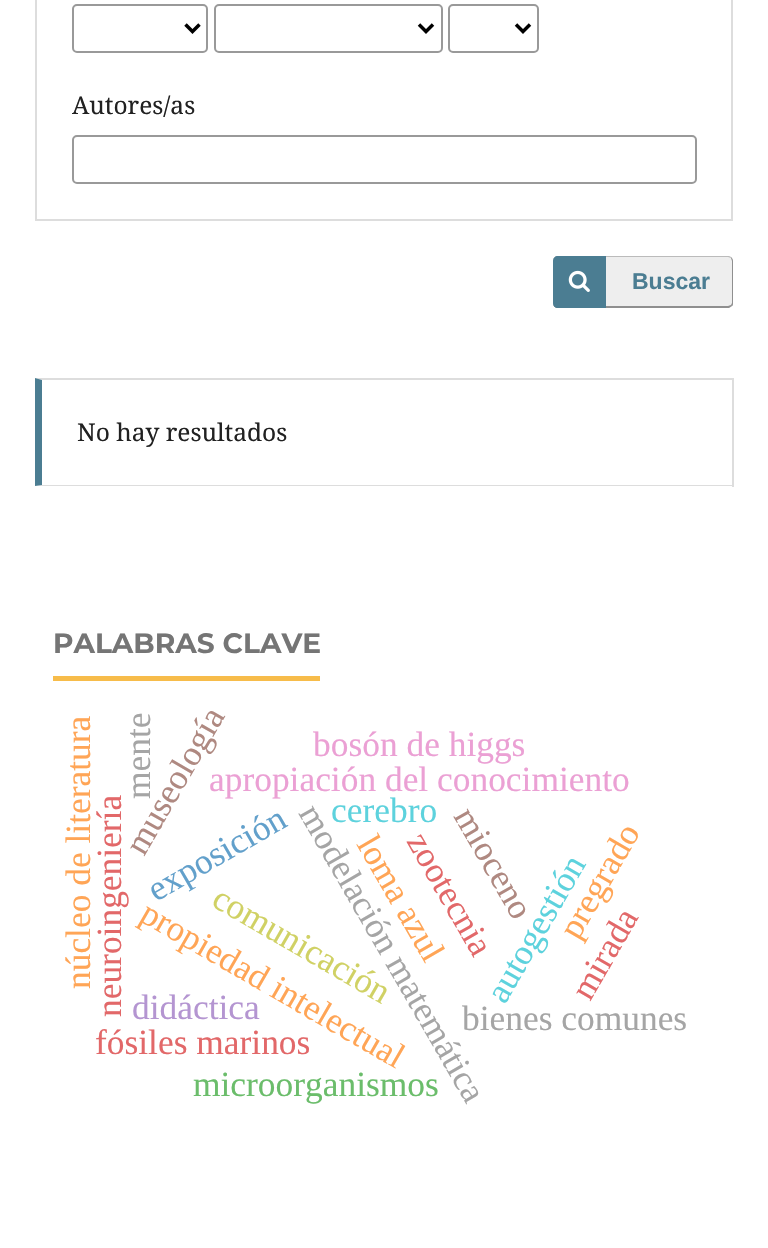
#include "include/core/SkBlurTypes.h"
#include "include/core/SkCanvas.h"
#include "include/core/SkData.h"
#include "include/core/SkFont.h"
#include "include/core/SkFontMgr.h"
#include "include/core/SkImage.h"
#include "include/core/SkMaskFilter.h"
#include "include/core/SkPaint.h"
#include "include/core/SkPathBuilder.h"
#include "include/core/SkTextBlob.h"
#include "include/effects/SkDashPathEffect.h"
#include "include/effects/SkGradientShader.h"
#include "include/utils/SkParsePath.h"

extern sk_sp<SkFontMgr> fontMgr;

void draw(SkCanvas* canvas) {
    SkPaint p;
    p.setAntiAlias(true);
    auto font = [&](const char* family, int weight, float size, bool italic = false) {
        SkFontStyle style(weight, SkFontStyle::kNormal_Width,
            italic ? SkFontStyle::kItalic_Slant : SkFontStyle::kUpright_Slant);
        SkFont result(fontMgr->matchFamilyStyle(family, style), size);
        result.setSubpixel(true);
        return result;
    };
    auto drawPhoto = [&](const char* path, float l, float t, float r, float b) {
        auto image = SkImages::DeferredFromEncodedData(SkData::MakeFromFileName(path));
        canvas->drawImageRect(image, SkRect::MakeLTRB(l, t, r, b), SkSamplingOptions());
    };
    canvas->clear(0xFFFFFFFF);
    p.setStyle(SkPaint::kStroke_Style);
    p.setStrokeWidth(2);
    p.setColor(0xFFDDDDDD);
    canvas->drawRect(SkRect::MakeLTRB(36, -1, 732, 220), p);
    p.setColor(0xFF999999);
    canvas->drawRoundRect(SkRect::MakeLTRB(73, 5, 207, 52), 4, 4, p);
    p.setStrokeWidth(3.5f);
    p.setColor(0xFF000000);
    canvas->drawPath(SkPathBuilder().moveTo(185.5f, 24.5f).lineTo(192.5f, 31.5f).lineTo(199.5f, 24.5f).detach(), p);
    p.setStrokeWidth(2);
    p.setColor(0xFF999999);
    canvas->drawRoundRect(SkRect::MakeLTRB(215, 5, 442, 52), 4, 4, p);
    p.setStrokeWidth(3.5f);
    p.setColor(0xFF000000);
    canvas->drawPath(SkPathBuilder().moveTo(419, 24.5f).lineTo(426, 31.5f).lineTo(433, 24.5f).detach(), p);
    p.setStrokeWidth(2);
    p.setColor(0xFF999999);
    canvas->drawRoundRect(SkRect::MakeLTRB(449, 5, 538, 52), 4, 4, p);
    p.setStrokeWidth(3.5f);
    p.setColor(0xFF000000);
    canvas->drawPath(SkPathBuilder().moveTo(516, 24.5f).lineTo(523, 31.5f).lineTo(530, 24.5f).detach(), p);
    auto font1 = font("Noto Serif", 400, 24.5f);
    p.setStyle(SkPaint::kFill_Style);
    p.setColor(0xFF212121);
    canvas->drawString("Autores/as", 72, 114, font1, p);
    p.setStyle(SkPaint::kStroke_Style);
    p.setStrokeWidth(2);
    p.setColor(0xFF999999);
    canvas->drawRoundRect(SkRect::MakeLTRB(73, 136, 696, 183), 4, 4, p);
    p.setStyle(SkPaint::kFill_Style);
    p.setColor(0xFFEEEEEE);
    canvas->drawRoundRect(SkRect::MakeLTRB(553, 256, 733, 308), 5, 5, p);
    p.setColor(0xFFBBBBBB);
    canvas->drawPath(SkPathBuilder().moveTo(558, 256).lineTo(729, 256).lineTo(731, 257).lineTo(731, 258).lineTo(728, 257).lineTo(586, 257).cubicTo(577, 257, 553, 253, 553, 261).cubicTo(553, 258, 555, 256, 558, 256).close().detach(), p);
    p.setColor(0x66000000);
    canvas->drawPath(SkPathBuilder().moveTo(731, 257).cubicTo(732, 258, 733, 259, 733, 261).lineTo(733, 303).cubicTo(733, 304, 733, 306, 732, 306).lineTo(731, 305).lineTo(732, 303).lineTo(732, 261).lineTo(731, 258).close().detach(), p);
    canvas->drawPath(SkPathBuilder().moveTo(558, 308).lineTo(729, 308).lineTo(732, 306).lineTo(731, 305).lineTo(728, 306).lineTo(558, 306).cubicTo(555, 306, 553, 305, 553, 303).cubicTo(553, 306, 555, 308, 558, 308).close().detach(), p);
    p.setColor(0xFF4B7D92);
    canvas->drawPath(SkPathBuilder().moveTo(558, 256).lineTo(606, 256).lineTo(606, 308).lineTo(558, 308).cubicTo(555, 308, 553, 306, 553, 303).lineTo(553, 261).cubicTo(553, 258, 555, 256, 558, 256).close().detach(), p);
    drawPhoto("media/1.png", 568, 270, 590, 292);
    auto font2 = font("Liberation Sans", 700, 23);
    canvas->drawString("Buscar", 632, 289, font2, p);
    p.setColor(0xFFDDDDDD);
    canvas->drawPath(SkPathBuilder().moveTo(35, 378).lineTo(733, 378).lineTo(732, 380).lineTo(42, 380).close().detach(), p);
    canvas->drawRect(SkRect::MakeLTRB(732, 378, 734, 487), p);
    canvas->drawPath(SkPathBuilder().moveTo(733, 486).lineTo(35, 486).lineTo(42, 485).lineTo(732, 485).close().detach(), p);
    p.setColor(0xFF4B7D92);
    canvas->drawPath(SkPathBuilder().moveTo(35, 486).lineTo(35, 378).lineTo(42, 380).lineTo(42, 485).close().detach(), p);
    p.setColor(0xFF212121);
    canvas->drawString("No hay resultados", 77, 441, font1, p);
    p.setColor(0xFFF7BC4A);
    canvas->drawRect(SkRect::MakeLTRB(53, 676, 320, 681), p);
    auto font3 = font("Montserrat", 700, 28);
    p.setColor(0xFF757575);
    canvas->drawString("PALABRAS CLAVE", 53, 653, font3, p);
    auto font4 = font("Liberation Serif", 400, 35.4f);
    p.setColor(0xFFEBA0D4);
    canvas->drawString("apropiación del conocimiento", 209, 791, font4, p);
    p.setColor(0xFF62A0CB);
    canvas->save();
    canvas->rotate(-30, 156, 902);
    canvas->drawString("exposición", 156, 902, font4, p);
    canvas->restore();
    p.setColor(0xFFAF8981);
    canvas->save();
    canvas->rotate(-60, 144, 857);
    canvas->drawString("museología", 144, 857, font4, p);
    canvas->restore();
    p.setColor(0xFFFFA556);
    canvas->save();
    canvas->rotate(-90, 90, 989);
    canvas->drawString("núcleo de literatura", 90, 989, font4, p);
    canvas->restore();
    p.setColor(0xFFA5A5A5);
    canvas->save();
    canvas->rotate(-90, 150, 799);
    canvas->drawString("mente", 150, 799, font4, p);
    canvas->restore();
    p.setColor(0xFFEBA0D4);
    canvas->drawString("bosón de higgs", 313, 756, font4, p);
    p.setColor(0xFFE26869);
    canvas->save();
    canvas->rotate(-90, 121, 1017);
    canvas->drawString("neuroingeniería", 121, 1017, font4, p);
    canvas->restore();
    p.setColor(0xFFA5A5A5);
    canvas->save();
    canvas->rotate(60, 298, 813);
    canvas->drawString("modelación matemática", 298, 813, font4, p);
    canvas->restore();
    p.setColor(0xFF5DD2DD);
    canvas->drawString("cerebro", 331, 822, font4, p);
    canvas->save();
    canvas->rotate(-60, 505, 1005);
    canvas->drawString("autogestión", 505, 1005, font4, p);
    canvas->restore();
    p.setColor(0xFFAF8981);
    canvas->save();
    canvas->rotate(60, 453, 816);
    canvas->drawString("mioceno", 453, 816, font4, p);
    canvas->restore();
    p.setColor(0xFFFFA556);
    canvas->save();
    canvas->rotate(-60, 578, 941);
    canvas->drawString("pregrado", 578, 941, font4, p);
    canvas->restore();
    canvas->save();
    canvas->rotate(60, 356, 844);
    canvas->drawString("loma azul", 356, 844, font4, p);
    canvas->restore();
    p.setColor(0xFFD0D164);
    canvas->save();
    canvas->rotate(30, 210, 905);
    canvas->drawString("comunicación", 210, 905, font4, p);
    canvas->restore();
    p.setColor(0xFFE26869);
    canvas->save();
    canvas->rotate(60, 406, 841);
    canvas->drawString("zootecnia", 406, 841, font4, p);
    canvas->restore();
    p.setColor(0xFFFFA556);
    canvas->save();
    canvas->rotate(30, 138, 920);
    canvas->drawString("propiedad intelectual", 138, 920, font4, p);
    canvas->restore();
    p.setColor(0xFFE26869);
    canvas->save();
    canvas->rotate(-60, 590, 1002);
    canvas->drawString("mirada", 590, 1002, font4, p);
    canvas->restore();
    p.setColor(0xFFB495D1);
    canvas->drawString("didáctica", 132, 1019, font4, p);
    p.setColor(0xFFA5A5A5);
    canvas->drawString("bienes comunes", 462, 1030, font4, p);
    p.setColor(0xFFE26869);
    canvas->drawString("fósiles marinos", 95, 1054, font4, p);
    p.setColor(0xFF6BBD6B);
    canvas->drawString("microorganismos", 193, 1096, font4, p);
}
